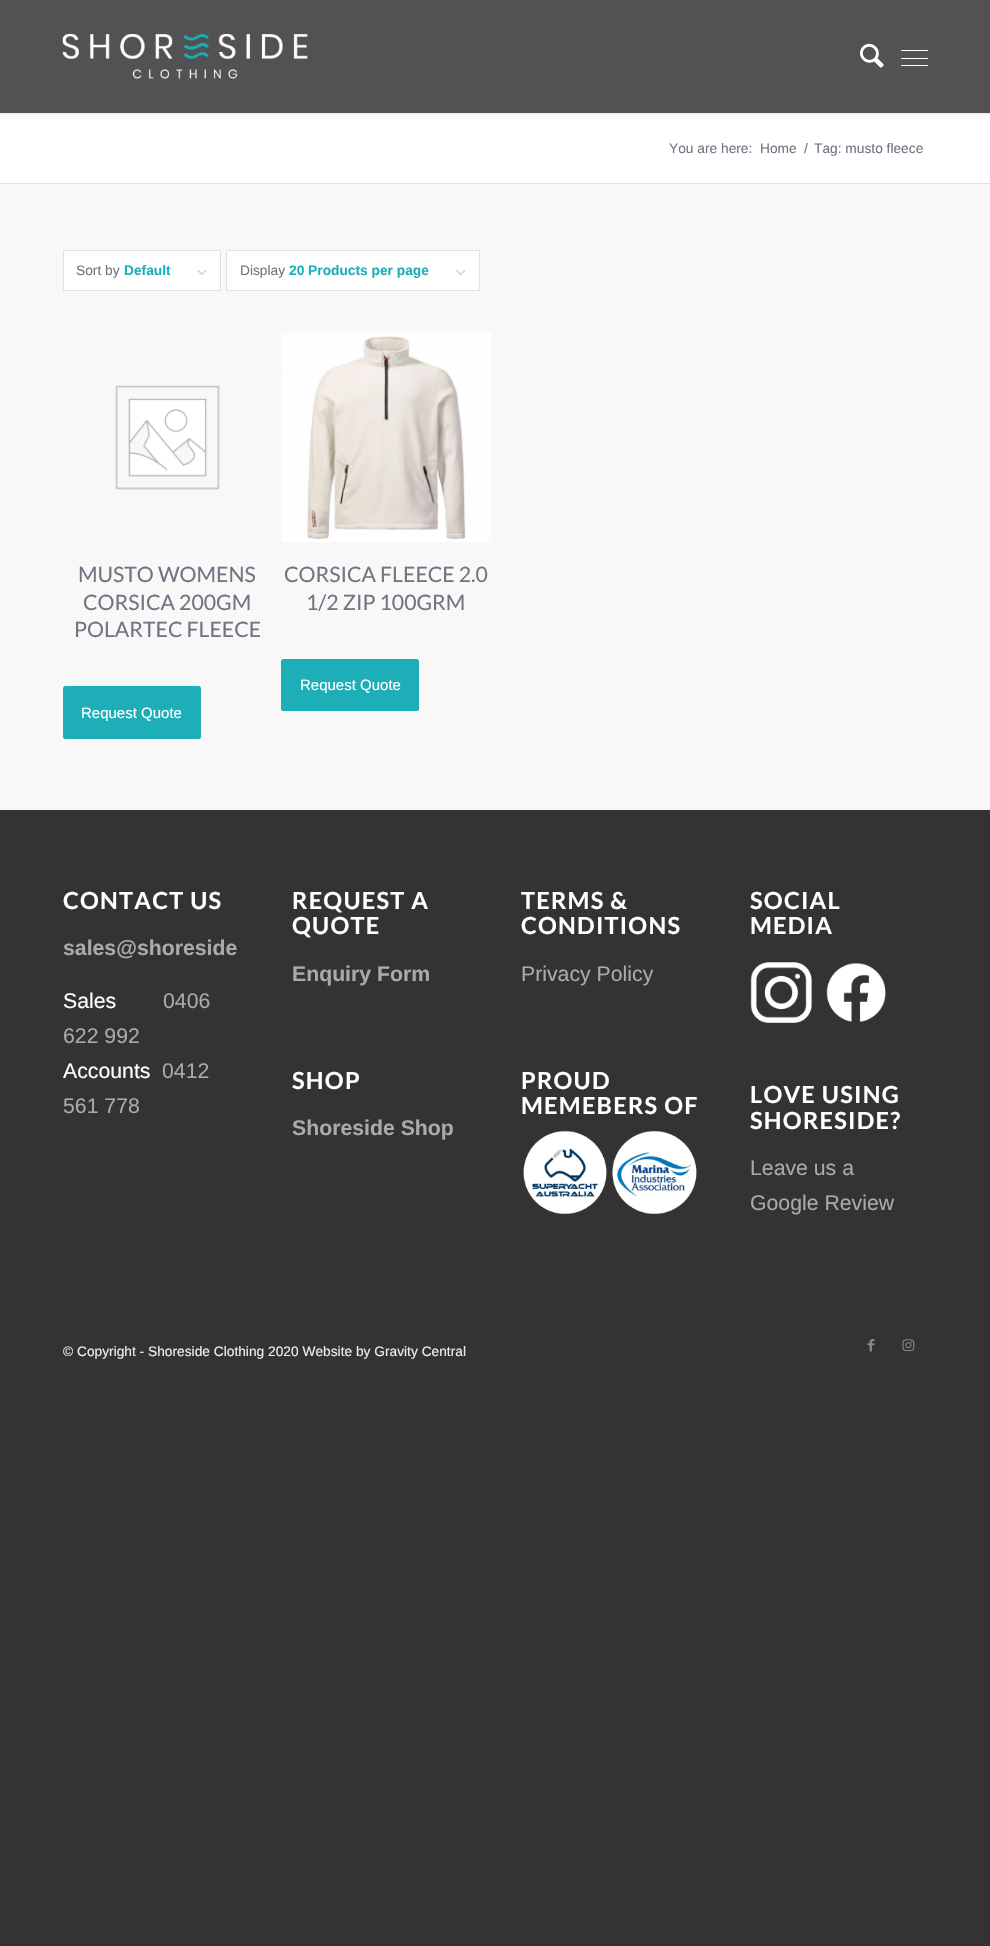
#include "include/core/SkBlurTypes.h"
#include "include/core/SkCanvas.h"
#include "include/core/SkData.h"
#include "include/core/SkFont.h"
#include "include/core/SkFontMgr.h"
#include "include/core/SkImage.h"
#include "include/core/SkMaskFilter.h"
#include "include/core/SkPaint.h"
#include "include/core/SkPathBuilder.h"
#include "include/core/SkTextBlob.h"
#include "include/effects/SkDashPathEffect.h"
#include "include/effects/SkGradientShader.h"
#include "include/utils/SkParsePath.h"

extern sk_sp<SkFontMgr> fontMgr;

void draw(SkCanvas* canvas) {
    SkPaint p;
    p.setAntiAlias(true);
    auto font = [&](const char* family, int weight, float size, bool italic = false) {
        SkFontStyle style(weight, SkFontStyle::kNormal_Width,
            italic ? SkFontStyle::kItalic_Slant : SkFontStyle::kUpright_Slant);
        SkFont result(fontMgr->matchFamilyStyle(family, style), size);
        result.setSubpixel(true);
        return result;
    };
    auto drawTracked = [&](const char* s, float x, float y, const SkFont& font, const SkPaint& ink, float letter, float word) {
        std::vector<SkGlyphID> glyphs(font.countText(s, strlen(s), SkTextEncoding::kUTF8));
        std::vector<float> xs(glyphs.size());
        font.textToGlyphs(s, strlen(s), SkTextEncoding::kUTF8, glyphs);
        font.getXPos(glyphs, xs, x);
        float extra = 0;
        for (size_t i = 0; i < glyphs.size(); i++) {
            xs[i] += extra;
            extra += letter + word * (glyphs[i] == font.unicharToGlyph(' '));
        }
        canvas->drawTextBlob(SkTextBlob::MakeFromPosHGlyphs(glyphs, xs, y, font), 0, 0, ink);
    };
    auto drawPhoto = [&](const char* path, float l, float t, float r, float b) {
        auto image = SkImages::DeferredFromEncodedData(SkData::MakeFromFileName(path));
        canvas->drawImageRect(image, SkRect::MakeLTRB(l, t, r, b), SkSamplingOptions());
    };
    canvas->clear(0xFF333333);
    p.setColor(0xFFFFFFFF);
    canvas->drawRect(SkRect::MakeLTRB(0, 113, 990, 183), p);
    p.setColor(0x1A000000);
    p.setMaskFilter(SkMaskFilter::MakeBlur(kNormal_SkBlurStyle, 1));
    canvas->drawRect(SkRect::MakeLTRB(-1, -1, 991, 114), p);
    p.setMaskFilter(nullptr);
    p.setColor(0xFF525252);
    canvas->drawRect(SkRect::MakeLTRB(0, 0, 990, 113), p);
    drawPhoto("media/1.png", 62, 33, 308, 79);
    drawPhoto("media/2.png", 860, 43, 884, 68);
    p.setColor(0xFFFFFFFF);
    canvas->drawRoundRect(SkRect::MakeLTRB(901, 58, 928, 59), 0.5f, 0.5f, p);
    canvas->drawRoundRect(SkRect::MakeLTRB(901, 50, 928, 51), 0.5f, 0.5f, p);
    canvas->drawRoundRect(SkRect::MakeLTRB(901, 65, 928, 66), 0.5f, 0.5f, p);
    auto font1 = font("Liberation Sans", 400, 13.75f);
    p.setColor(0xFF717481);
    {
        const struct { const char* s; float x, y; } items[] = {
            {"You are here:", 669, 153},
            {"Home", 760, 153},
            {"/", 804, 153},
            {"Tag: musto fleece", 814, 153},
        };
        for (auto [s, x, y] : items) {
            canvas->drawString(s, x, y, font1, p);
        }
    }
    {
        const struct { float l, t, r, b; SkColor color; } items[] = {
            {0, 184, 990, 810, 0xFFF8F8F8},
            {0, 183, 990, 184, 0xFFE1E1E1},
            {64, 251, 220, 290, 0xFFFFFFFF},
        };
        for (auto [l, t, r, b, color] : items) {
            p.setColor(color);
            canvas->drawRect(SkRect::MakeLTRB(l, t, r, b), p);
        }
    }
    drawPhoto("media/3.png", 197, 270, 207, 276);
    p.setStyle(SkPaint::kStroke_Style);
    p.setStrokeWidth(1);
    p.setColor(0xFFE1E1E1);
    canvas->drawRect(SkRect::MakeLTRB(63.5f, 250.5f, 220.5f, 290.5f), p);
    p.setStyle(SkPaint::kFill_Style);
    p.setColor(0xFF717481);
    canvas->drawString("Sort by", 76, 275, font1, p);
    auto font2 = font("Liberation Sans", 700, 13.75f);
    p.setColor(0xFF1DAEB8);
    canvas->drawString("Default", 124, 275, font2, p);
    p.setColor(0xFFFFFFFF);
    canvas->drawRect(SkRect::MakeLTRB(227, 251, 479, 290), p);
    drawPhoto("media/4.png", 456, 270, 466, 276);
    p.setStyle(SkPaint::kStroke_Style);
    p.setColor(0xFFE1E1E1);
    canvas->drawRect(SkRect::MakeLTRB(226.5f, 250.5f, 479.5f, 290.5f), p);
    p.setStyle(SkPaint::kFill_Style);
    p.setColor(0xFF717481);
    canvas->drawString("Display", 240, 275, font1, p);
    p.setColor(0xFF1DAEB8);
    canvas->drawString("20 Products per page", 289, 275, font2, p);
    drawPhoto("media/5.png", 115, 385, 220, 490);
    auto font3 = font("Lato", 400, 21.25f);
    p.setColor(0xFF717481);
    {
        const struct { const char* s; float x, y; } items[] = {
            {"MUSTO WOMENS", 78, 582},
            {"CORSICA 200GM", 83, 610},
            {"POLARTEC FLEECE", 74, 637},
        };
        for (auto [s, x, y] : items) {
            canvas->drawString(s, x, y, font3, p);
        }
    }
    p.setColor(0xFF1DAEB8);
    canvas->drawRoundRect(SkRect::MakeLTRB(63, 686, 201, 739), 2.5f, 2.5f, p);
    auto font4 = font("Liberation Sans", 400, 15);
    p.setColor(0xFFFFFFFF);
    canvas->drawString("Request Quote", 81, 718, font4, p);
    drawPhoto("media/6.png", 282, 333, 491, 542);
    p.setColor(0xFF717481);
    canvas->drawString("CORSICA FLEECE 2.0", 284, 582, font3, p);
    canvas->drawString("1/2 ZIP 100GRM", 306, 610, font3, p);
    p.setColor(0xFF1DAEB8);
    canvas->drawRoundRect(SkRect::MakeLTRB(281, 659, 419, 711), 2.5f, 2.5f, p);
    p.setColor(0xFFFFFFFF);
    canvas->drawString("Request Quote", 300, 690, font4, p);
    auto font5 = font("Lato", 700, 23.5f);
    drawTracked("CONTACT US", 63, 909, font5, p, 1.25f, 0);
    auto font6 = font("Liberation Sans", 700, 21.25f);
    p.setColor(0xFFAAAAAA);
    canvas->drawString("sales@shoreside", 63, 955, font6, p);
    auto font7 = font("Liberation Sans", 400, 21.25f);
    p.setColor(0xFFFFFFFF);
    canvas->drawString("Sales", 63, 1008, font7, p);
    p.setColor(0xFFAAAAAA);
    canvas->drawString("0406", 163, 1008, font7, p);
    canvas->drawString("622 992", 63, 1043, font7, p);
    p.setColor(0xFFFFFFFF);
    canvas->drawString("Accounts", 63, 1078, font7, p);
    p.setColor(0xFFAAAAAA);
    canvas->drawString("0412", 162, 1078, font7, p);
    canvas->drawString("561 778", 63, 1113, font7, p);
    p.setColor(0xFFFFFFFF);
    drawTracked("REQUEST A", 292, 909, font5, p, 1.25f, 0);
    drawTracked("QUOTE", 292, 934, font5, p, 1.25f, 0);
    p.setColor(0xFFAAAAAA);
    canvas->drawString("Enquiry Form", 292, 981, font6, p);
    p.setColor(0xFFFFFFFF);
    drawTracked("SHOP", 292, 1089, font5, p, 1.25f, 0);
    p.setColor(0xFFAAAAAA);
    canvas->drawString("Shoreside Shop", 292, 1135, font6, p);
    p.setColor(0xFFFFFFFF);
    drawTracked("TERMS &", 521, 909, font5, p, 1.25f, 0);
    drawTracked("CONDITIONS", 521, 934, font5, p, 1.25f, 0);
    p.setColor(0xFFAAAAAA);
    canvas->drawString("Privacy Policy", 521, 981, font7, p);
    p.setColor(0xFFFFFFFF);
    drawTracked("PROUD", 521, 1089, font5, p, 1.25f, 0);
    drawTracked("MEMEBERS OF", 521, 1114, font5, p, 1.25f, 0);
    drawPhoto("media/7.png", 523, 1131, 607, 1214);
    drawPhoto("media/8.png", 612, 1131, 697, 1214);
    drawTracked("SOCIAL", 750, 909, font5, p, 1.25f, 0);
    drawTracked("MEDIA", 750, 934, font5, p, 1.25f, 0);
    drawPhoto("media/9.png", 750, 962, 812, 1023);
    drawPhoto("media/10.png", 826, 963, 886, 1023);
    drawTracked("LOVE USING", 750, 1103, font5, p, 1.25f, 0);
    drawTracked("SHORESIDE?", 750, 1129, font5, p, 1.25f, 0);
    p.setColor(0xFFAAAAAA);
    canvas->drawString("Leave us a", 750, 1175, font7, p);
    canvas->drawString("Google Review", 750, 1210, font7, p);
    p.setColor(0xFFEEEEEE);
    canvas->drawString("© Copyright - Shoreside Clothing 2020 Website by Gravity Central", 63, 1356, font1, p);
    drawPhoto("media/11.png", 867, 1339, 875, 1352);
    drawPhoto("media/12.png", 902, 1339, 915, 1352);
}
